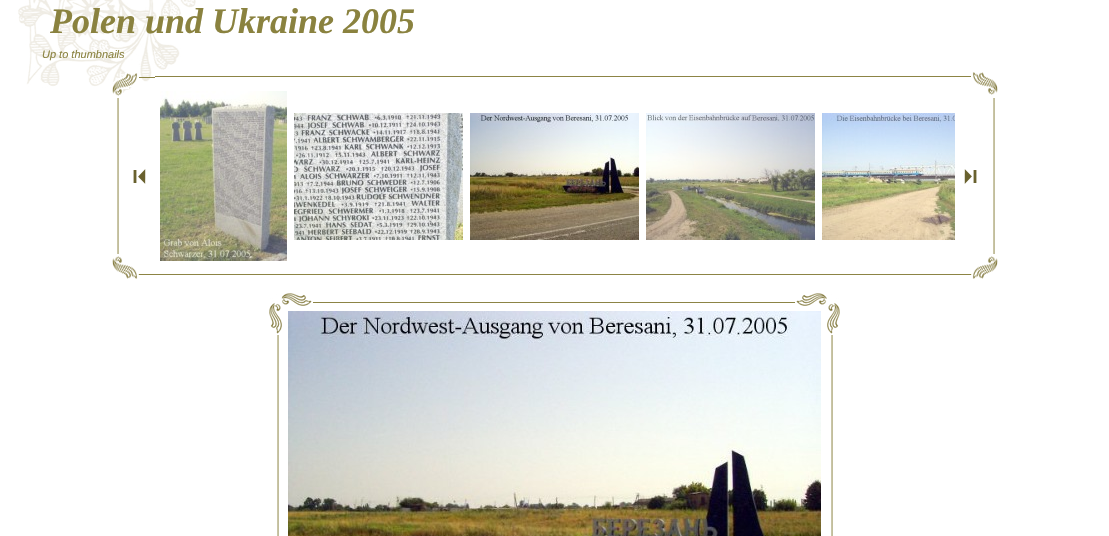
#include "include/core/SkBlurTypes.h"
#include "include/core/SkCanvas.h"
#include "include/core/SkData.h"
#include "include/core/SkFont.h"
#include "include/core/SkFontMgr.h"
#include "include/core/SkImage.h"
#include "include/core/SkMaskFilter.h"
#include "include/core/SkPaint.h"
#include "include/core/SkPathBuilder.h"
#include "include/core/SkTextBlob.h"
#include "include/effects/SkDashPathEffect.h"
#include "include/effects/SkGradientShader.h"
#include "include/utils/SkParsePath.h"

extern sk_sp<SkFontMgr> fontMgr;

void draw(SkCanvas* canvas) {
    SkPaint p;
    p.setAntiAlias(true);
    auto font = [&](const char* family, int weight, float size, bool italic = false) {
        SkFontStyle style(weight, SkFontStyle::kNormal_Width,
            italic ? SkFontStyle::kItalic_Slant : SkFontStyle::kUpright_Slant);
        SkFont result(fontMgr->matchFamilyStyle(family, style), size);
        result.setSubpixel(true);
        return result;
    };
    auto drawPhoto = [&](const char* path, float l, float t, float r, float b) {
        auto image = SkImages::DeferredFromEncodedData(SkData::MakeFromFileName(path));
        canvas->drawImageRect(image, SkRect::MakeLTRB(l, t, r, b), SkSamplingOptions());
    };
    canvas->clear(0xFFFFFFFF);
    drawPhoto("media/1.png", 18, 0, 196, 95);
    auto font1 = font("Liberation Serif", 700, 36, true);
    p.setColor(0xFF8A823F);
    canvas->drawString("Polen und Ukraine 2005", 50, 33, font1, p);
    auto font2 = font("Liberation Sans", 400, 11, true);
    canvas->drawString("Up to thumbnails", 42, 58, font2, p);
    drawPhoto("media/2.png", 112, 73, 155, 98);
    p.setColor(0xFF8C8445);
    canvas->drawRect(SkRect::MakeLTRB(155, 76, 955, 77), p);
    drawPhoto("media/3.png", 955, 72, 998, 98);
    drawPhoto("media/4.png", 117, 98, 119, 254);
    drawPhoto("media/5.png", 133, 169, 146, 184);
    drawPhoto("media/6.png", 160, 91, 287, 261);
    drawPhoto("media/7.png", 294, 113, 463, 240);
    drawPhoto("media/8.png", 470, 113, 639, 240);
    drawPhoto("media/9.png", 646, 113, 815, 240);
    drawPhoto("media/10.png", 822, 113, 955, 240);
    drawPhoto("media/4.png", 993, 98, 995, 254);
    drawPhoto("media/11.png", 964, 169, 977, 184);
    drawPhoto("media/12.png", 112, 254, 155, 279);
    canvas->drawRect(SkRect::MakeLTRB(155, 274, 955, 275), p);
    drawPhoto("media/13.png", 955, 254, 998, 279);
    drawPhoto("media/14.png", 269, 293, 312, 334);
    canvas->drawRect(SkRect::MakeLTRB(313, 302, 795, 303), p);
    drawPhoto("media/15.png", 796, 293, 840, 334);
    drawPhoto("media/16.png", 277, 335, 279, 536);
    drawPhoto("media/17.png", 288, 311, 821, 536);
    drawPhoto("media/16.png", 831, 335, 833, 536);
}
